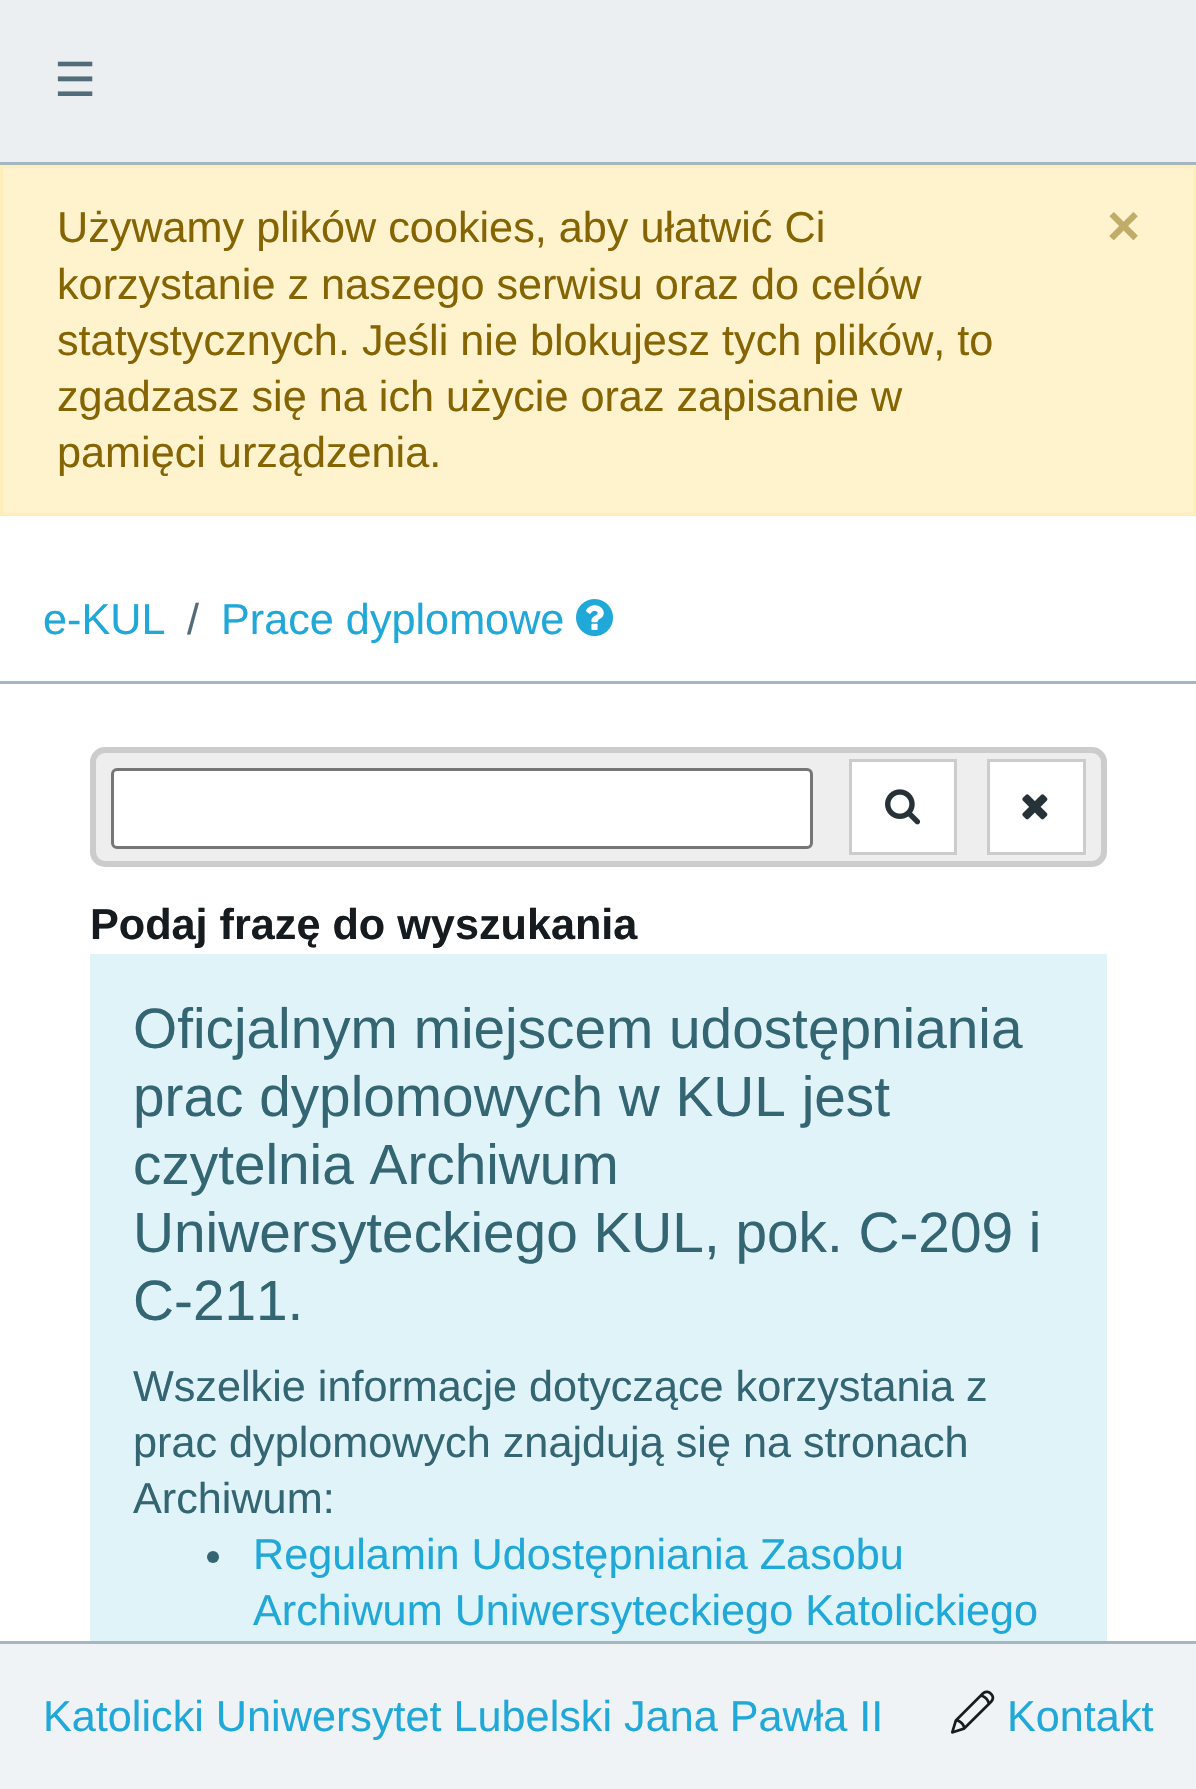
#include "include/core/SkBlurTypes.h"
#include "include/core/SkCanvas.h"
#include "include/core/SkData.h"
#include "include/core/SkFont.h"
#include "include/core/SkFontMgr.h"
#include "include/core/SkImage.h"
#include "include/core/SkMaskFilter.h"
#include "include/core/SkPaint.h"
#include "include/core/SkPathBuilder.h"
#include "include/core/SkTextBlob.h"
#include "include/effects/SkDashPathEffect.h"
#include "include/effects/SkGradientShader.h"
#include "include/utils/SkParsePath.h"

extern sk_sp<SkFontMgr> fontMgr;

void draw(SkCanvas* canvas) {
    SkPaint p;
    p.setAntiAlias(true);
    auto font = [&](const char* family, int weight, float size, bool italic = false) {
        SkFontStyle style(weight, SkFontStyle::kNormal_Width,
            italic ? SkFontStyle::kItalic_Slant : SkFontStyle::kUpright_Slant);
        SkFont result(fontMgr->matchFamilyStyle(family, style), size);
        result.setSubpixel(true);
        return result;
    };
    auto drawPhoto = [&](const char* path, float l, float t, float r, float b) {
        auto image = SkImages::DeferredFromEncodedData(SkData::MakeFromFileName(path));
        canvas->drawImageRect(image, SkRect::MakeLTRB(l, t, r, b), SkSamplingOptions());
    };
    canvas->clear(0xFFFFFFFF);
    p.setColor(0xFFECEFF1);
    canvas->drawRect(SkRect::MakeLTRB(0, 0, 1196, 162), p);
    p.setColor(0xFFA4B7C1);
    canvas->drawRect(SkRect::MakeLTRB(0, 162, 1196, 165), p);
    auto font1 = font("DejaVu Sans", 400, 47);
    p.setColor(0xFF536C79);
    canvas->drawString("☰", 54, 96, font1, p);
    p.setColor(0xFFFFF3CD);
    canvas->drawRect(SkRect::MakeLTRB(1.5f, 166.5f, 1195.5f, 514.5f), p);
    p.setStyle(SkPaint::kStroke_Style);
    p.setStrokeWidth(3);
    p.setColor(0xFFFFEEBA);
    canvas->drawRect(SkRect::MakeLTRB(1.5f, 166.5f, 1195.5f, 514.5f), p);
    auto font2 = font("Liberation Sans", 400, 43.2f);
    p.setStyle(SkPaint::kFill_Style);
    p.setColor(0xFF856404);
    canvas->drawString("Używamy plików cookies, aby ułatwić Ci", 57, 242, font2, p);
    auto font3 = font("Liberation Sans", 700, 56.75f);
    p.setColor(0xFFC2AC69);
    canvas->drawString("×", 1107, 245, font3, p);
    p.setColor(0xFF856404);
    {
        const struct { const char* s; float x, y; } items[] = {
            {"korzystanie z naszego serwisu oraz do celów", 57, 299},
            {"statystycznych. Jeśli nie blokujesz tych plików, to", 57, 355},
            {"zgadzasz się na ich użycie oraz zapisanie w", 57, 411},
            {"pamięci urządzenia.", 57, 467},
        };
        for (auto [s, x, y] : items) {
            canvas->drawString(s, x, y, font2, p);
        }
    }
    p.setColor(0xFFA4B7C1);
    canvas->drawRect(SkRect::MakeLTRB(0, 681, 1196, 684), p);
    p.setColor(0xFF20A8D8);
    canvas->drawString("e-KUL", 43, 634, font2, p);
    p.setColor(0xFF536C79);
    canvas->drawString("/", 187, 634, font2, p);
    p.setColor(0xFF20A8D8);
    canvas->drawString("Prace dyplomowe", 221, 634, font2, p);
    drawPhoto("media/1.png", 576, 599, 613, 637);
    p.setColor(0xFFEEEEEE);
    canvas->drawRoundRect(SkRect::MakeLTRB(93, 750, 1104, 864), 12, 12, p);
    p.setStyle(SkPaint::kStroke_Style);
    p.setStrokeWidth(6);
    p.setColor(0xFFCCCCCC);
    canvas->drawRoundRect(SkRect::MakeLTRB(93, 750, 1104, 864), 12, 12, p);
    p.setStyle(SkPaint::kFill_Style);
    p.setColor(0xFFFFFFFF);
    canvas->drawRoundRect(SkRect::MakeLTRB(112.5f, 769.5f, 811.5f, 847.5f), 4.5f, 4.5f, p);
    p.setStyle(SkPaint::kStroke_Style);
    p.setStrokeWidth(3);
    p.setColor(0xFF767676);
    canvas->drawRoundRect(SkRect::MakeLTRB(112.5f, 769.5f, 811.5f, 847.5f), 4.5f, 4.5f, p);
    p.setStyle(SkPaint::kFill_Style);
    p.setColor(0xFFFFFFFF);
    canvas->drawRect(SkRect::MakeLTRB(850.5f, 760.5f, 955.5f, 853.5f), p);
    p.setStyle(SkPaint::kStroke_Style);
    p.setColor(0xFFCCCCCC);
    canvas->drawRect(SkRect::MakeLTRB(850.5f, 760.5f, 955.5f, 853.5f), p);
    drawPhoto("media/2.png", 885, 789, 921, 825);
    p.setStyle(SkPaint::kFill_Style);
    p.setColor(0xFFFFFFFF);
    canvas->drawRect(SkRect::MakeLTRB(988.5f, 760.5f, 1084.5f, 853.5f), p);
    p.setStyle(SkPaint::kStroke_Style);
    p.setColor(0xFFCCCCCC);
    canvas->drawRect(SkRect::MakeLTRB(988.5f, 760.5f, 1084.5f, 853.5f), p);
    drawPhoto("media/3.png", 1022, 794, 1048, 820);
    auto font4 = font("Liberation Sans", 700, 43.2f);
    p.setStyle(SkPaint::kFill_Style);
    p.setColor(0xFF151B1E);
    canvas->drawString("Podaj frazę do wyszukania", 90, 939, font4, p);
    p.setColor(0xFFE0F3F8);
    canvas->drawRect(SkRect::MakeLTRB(90, 954, 1107, 1641), p);
    auto font5 = font("Liberation Sans", 400, 56.75f);
    p.setColor(0xFF336573);
    {
        const struct { const char* s; float x, y; } items[] = {
            {"Oficjalnym miejscem udostępniania", 133, 1048},
            {"prac dyplomowych w KUL jest", 133, 1116},
            {"czytelnia Archiwum", 133, 1184},
            {"Uniwersyteckiego KUL, pok. C-209 i", 133, 1252},
            {"C-211.", 133, 1320},
        };
        for (auto [s, x, y] : items) {
            canvas->drawString(s, x, y, font5, p);
        }
    }
    {
        const struct { const char* s; float x, y; } items[] = {
            {"Wszelkie informacje dotyczące korzystania z", 133, 1401},
            {"prac dyplomowych znajdują się na stronach", 133, 1457},
            {"Archiwum:", 133, 1513},
        };
        for (auto [s, x, y] : items) {
            canvas->drawString(s, x, y, font2, p);
        }
    }
    canvas->drawCircle(213, 1557, 6, p);
    p.setColor(0xFF20A8D8);
    canvas->drawString("Regulamin Udostępniania Zasobu", 253, 1569, font2, p);
    canvas->drawString("Archiwum Uniwersyteckiego Katolickiego", 253, 1625, font2, p);
    p.setColor(0xFFF0F3F5);
    canvas->drawRect(SkRect::MakeLTRB(0, 1644, 1196, 1789), p);
    p.setColor(0xFFA4B7C1);
    canvas->drawRect(SkRect::MakeLTRB(0, 1641, 1196, 1644), p);
    p.setColor(0xFF20A8D8);
    canvas->drawString("Katolicki Uniwersytet Lubelski Jana Pawła II", 43, 1731, font2, p);
    drawPhoto("media/4.png", 951, 1690, 995, 1734);
    canvas->drawString("Kontakt", 1007, 1731, font2, p);
}
